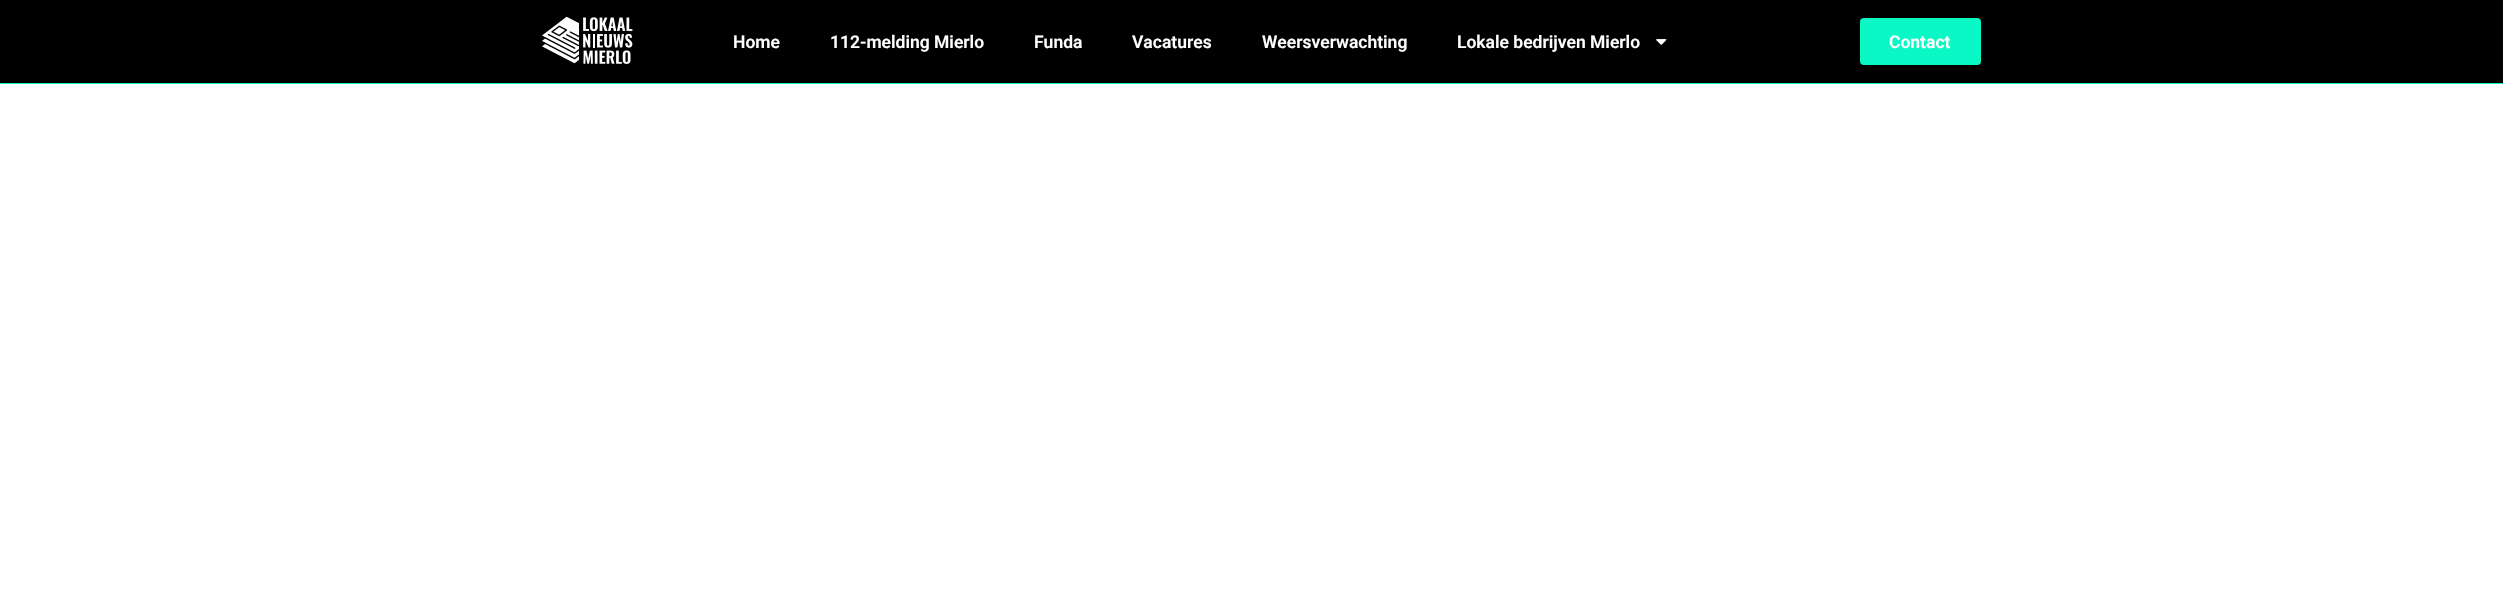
#include "include/core/SkBlurTypes.h"
#include "include/core/SkCanvas.h"
#include "include/core/SkData.h"
#include "include/core/SkFont.h"
#include "include/core/SkFontMgr.h"
#include "include/core/SkImage.h"
#include "include/core/SkMaskFilter.h"
#include "include/core/SkPaint.h"
#include "include/core/SkPathBuilder.h"
#include "include/core/SkTextBlob.h"
#include "include/effects/SkDashPathEffect.h"
#include "include/effects/SkGradientShader.h"
#include "include/utils/SkParsePath.h"

extern sk_sp<SkFontMgr> fontMgr;

void draw(SkCanvas* canvas) {
    SkPaint p;
    p.setAntiAlias(true);
    auto font = [&](const char* family, int weight, float size, bool italic = false) {
        SkFontStyle style(weight, SkFontStyle::kNormal_Width,
            italic ? SkFontStyle::kItalic_Slant : SkFontStyle::kUpright_Slant);
        SkFont result(fontMgr->matchFamilyStyle(family, style), size);
        result.setSubpixel(true);
        return result;
    };
    auto drawPhoto = [&](const char* path, float l, float t, float r, float b) {
        auto image = SkImages::DeferredFromEncodedData(SkData::MakeFromFileName(path));
        canvas->drawImageRect(image, SkRect::MakeLTRB(l, t, r, b), SkSamplingOptions());
    };
    canvas->clear(0xFFFFFFFF);
    p.setColor(0xFF000000);
    canvas->drawRect(SkRect::MakeLTRB(0, 0, 2503, 83), p);
    drawPhoto("media/1.png", 541, 16, 633, 64);
    auto font1 = font("Roboto", 600, 17.5f);
    p.setColor(0xFFFFFFFF);
    {
        const struct { const char* s; float x, y; } items[] = {
            {"Home", 733, 48},
            {"112-melding Mierlo", 830, 48},
            {"Funda", 1034, 48},
            {"Vacatures", 1132, 48},
            {"Weersverwachting", 1262, 48},
            {"Lokale bedrijven Mierlo", 1457, 48},
        };
        for (auto [s, x, y] : items) {
            canvas->drawString(s, x, y, font1, p);
        }
    }
    drawPhoto("media/2.png", 1656, 39, 1667, 45);
    p.setColor(0xFF0AF8C5);
    canvas->drawRoundRect(SkRect::MakeLTRB(1860, 18, 1981, 65), 4, 4, p);
    p.setColor(0xFFFFFFFF);
    canvas->drawString("Contact", 1889, 48, font1, p);
    p.setColor(0xFF0AF8C5);
    canvas->drawRect(SkRect::MakeLTRB(0, 83, 2503, 84), p);
}
